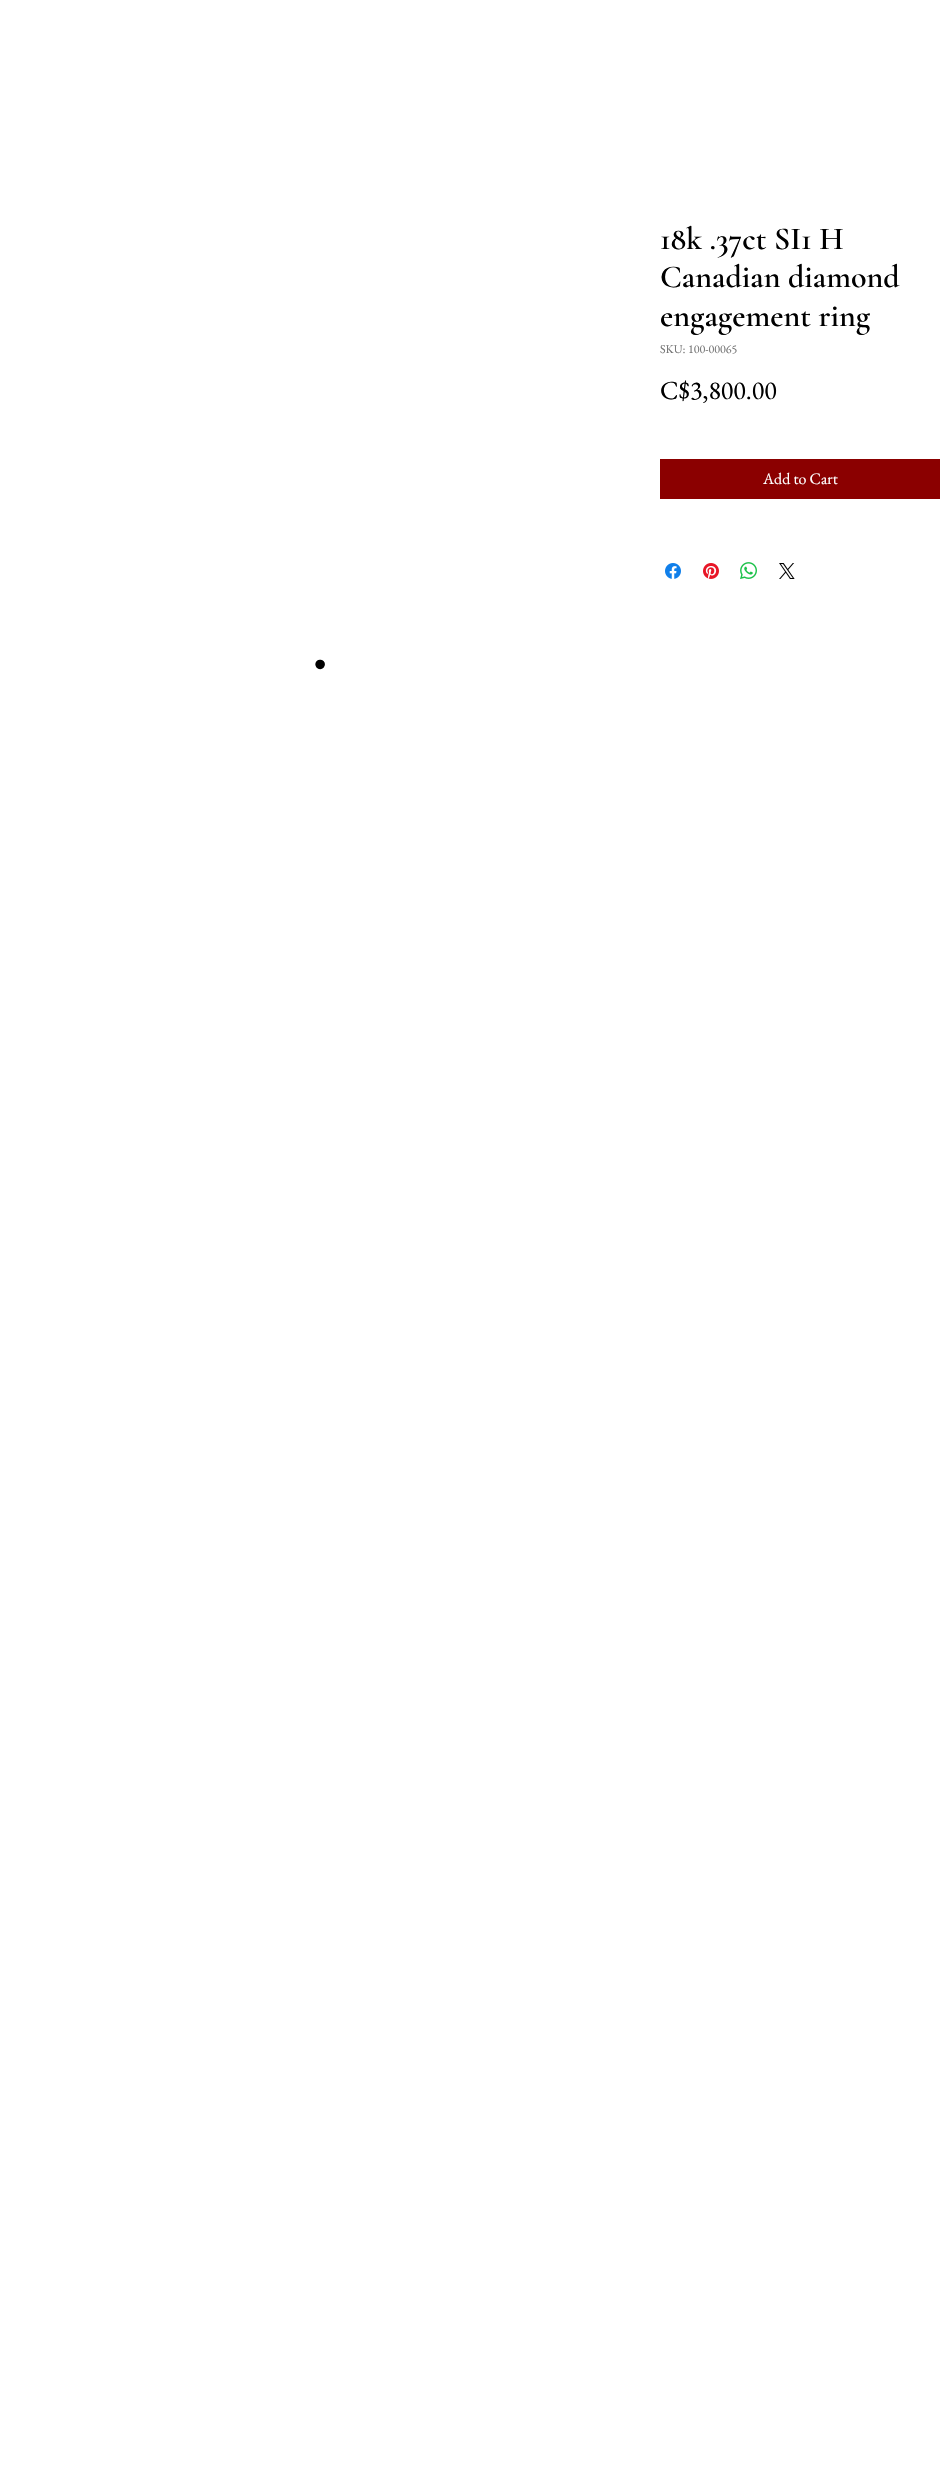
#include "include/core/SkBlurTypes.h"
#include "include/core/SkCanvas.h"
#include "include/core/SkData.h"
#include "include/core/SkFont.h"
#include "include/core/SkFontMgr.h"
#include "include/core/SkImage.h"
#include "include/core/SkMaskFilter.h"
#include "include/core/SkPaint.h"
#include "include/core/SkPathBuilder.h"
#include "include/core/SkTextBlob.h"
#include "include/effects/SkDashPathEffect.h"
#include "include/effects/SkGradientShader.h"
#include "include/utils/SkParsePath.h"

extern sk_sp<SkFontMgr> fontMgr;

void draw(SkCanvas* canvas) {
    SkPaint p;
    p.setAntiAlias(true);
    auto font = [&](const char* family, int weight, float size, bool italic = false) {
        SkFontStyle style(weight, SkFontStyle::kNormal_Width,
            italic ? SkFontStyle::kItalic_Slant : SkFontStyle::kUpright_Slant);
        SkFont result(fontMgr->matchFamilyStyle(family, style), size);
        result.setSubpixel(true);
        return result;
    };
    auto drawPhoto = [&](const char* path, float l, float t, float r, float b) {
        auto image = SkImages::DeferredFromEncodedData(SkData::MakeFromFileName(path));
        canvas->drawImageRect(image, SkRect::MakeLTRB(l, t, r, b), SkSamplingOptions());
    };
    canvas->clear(0xFFFFFFFF);
    auto font1 = font("Cormorant Garamond", 600, 32);
    p.setColor(0xFF000000);
    {
        const struct { const char* s; float x, y; } items[] = {
            {"18k .37ct SI1 H", 660, 249},
            {"Canadian diamond", 660, 287},
            {"engagement ring", 660, 326},
        };
        for (auto [s, x, y] : items) {
            canvas->drawString(s, x, y, font1, p);
        }
    }
    auto font2 = font("EB Garamond", 400, 12);
    p.setColor(0xFF757575);
    canvas->drawString("SKU: 100-00065", 660, 353, font2, p);
    auto font3 = font("EB Garamond", 400, 26);
    p.setColor(0xFF000000);
    canvas->drawString("C$3,800.00", 660, 399, font3, p);
    p.setColor(0xFF8B0000);
    canvas->drawRect(SkRect::MakeLTRB(660, 459, 940, 499), p);
    auto font4 = font("EB Garamond", 400, 16);
    p.setColor(0xFFFFFFFF);
    canvas->drawString("Add to Cart", 763, 484, font4, p);
    drawPhoto("media/1.png", 665, 563, 681, 579);
    drawPhoto("media/2.png", 703, 563, 719, 579);
    drawPhoto("media/3.png", 740, 562, 757, 579);
    drawPhoto("media/4.png", 779, 563, 795, 579);
    auto font5 = font("Liberation Sans", 400, 35);
    p.setColor(0xFF000000);
    canvas->drawString("•", 314, 676, font5, p);
}
